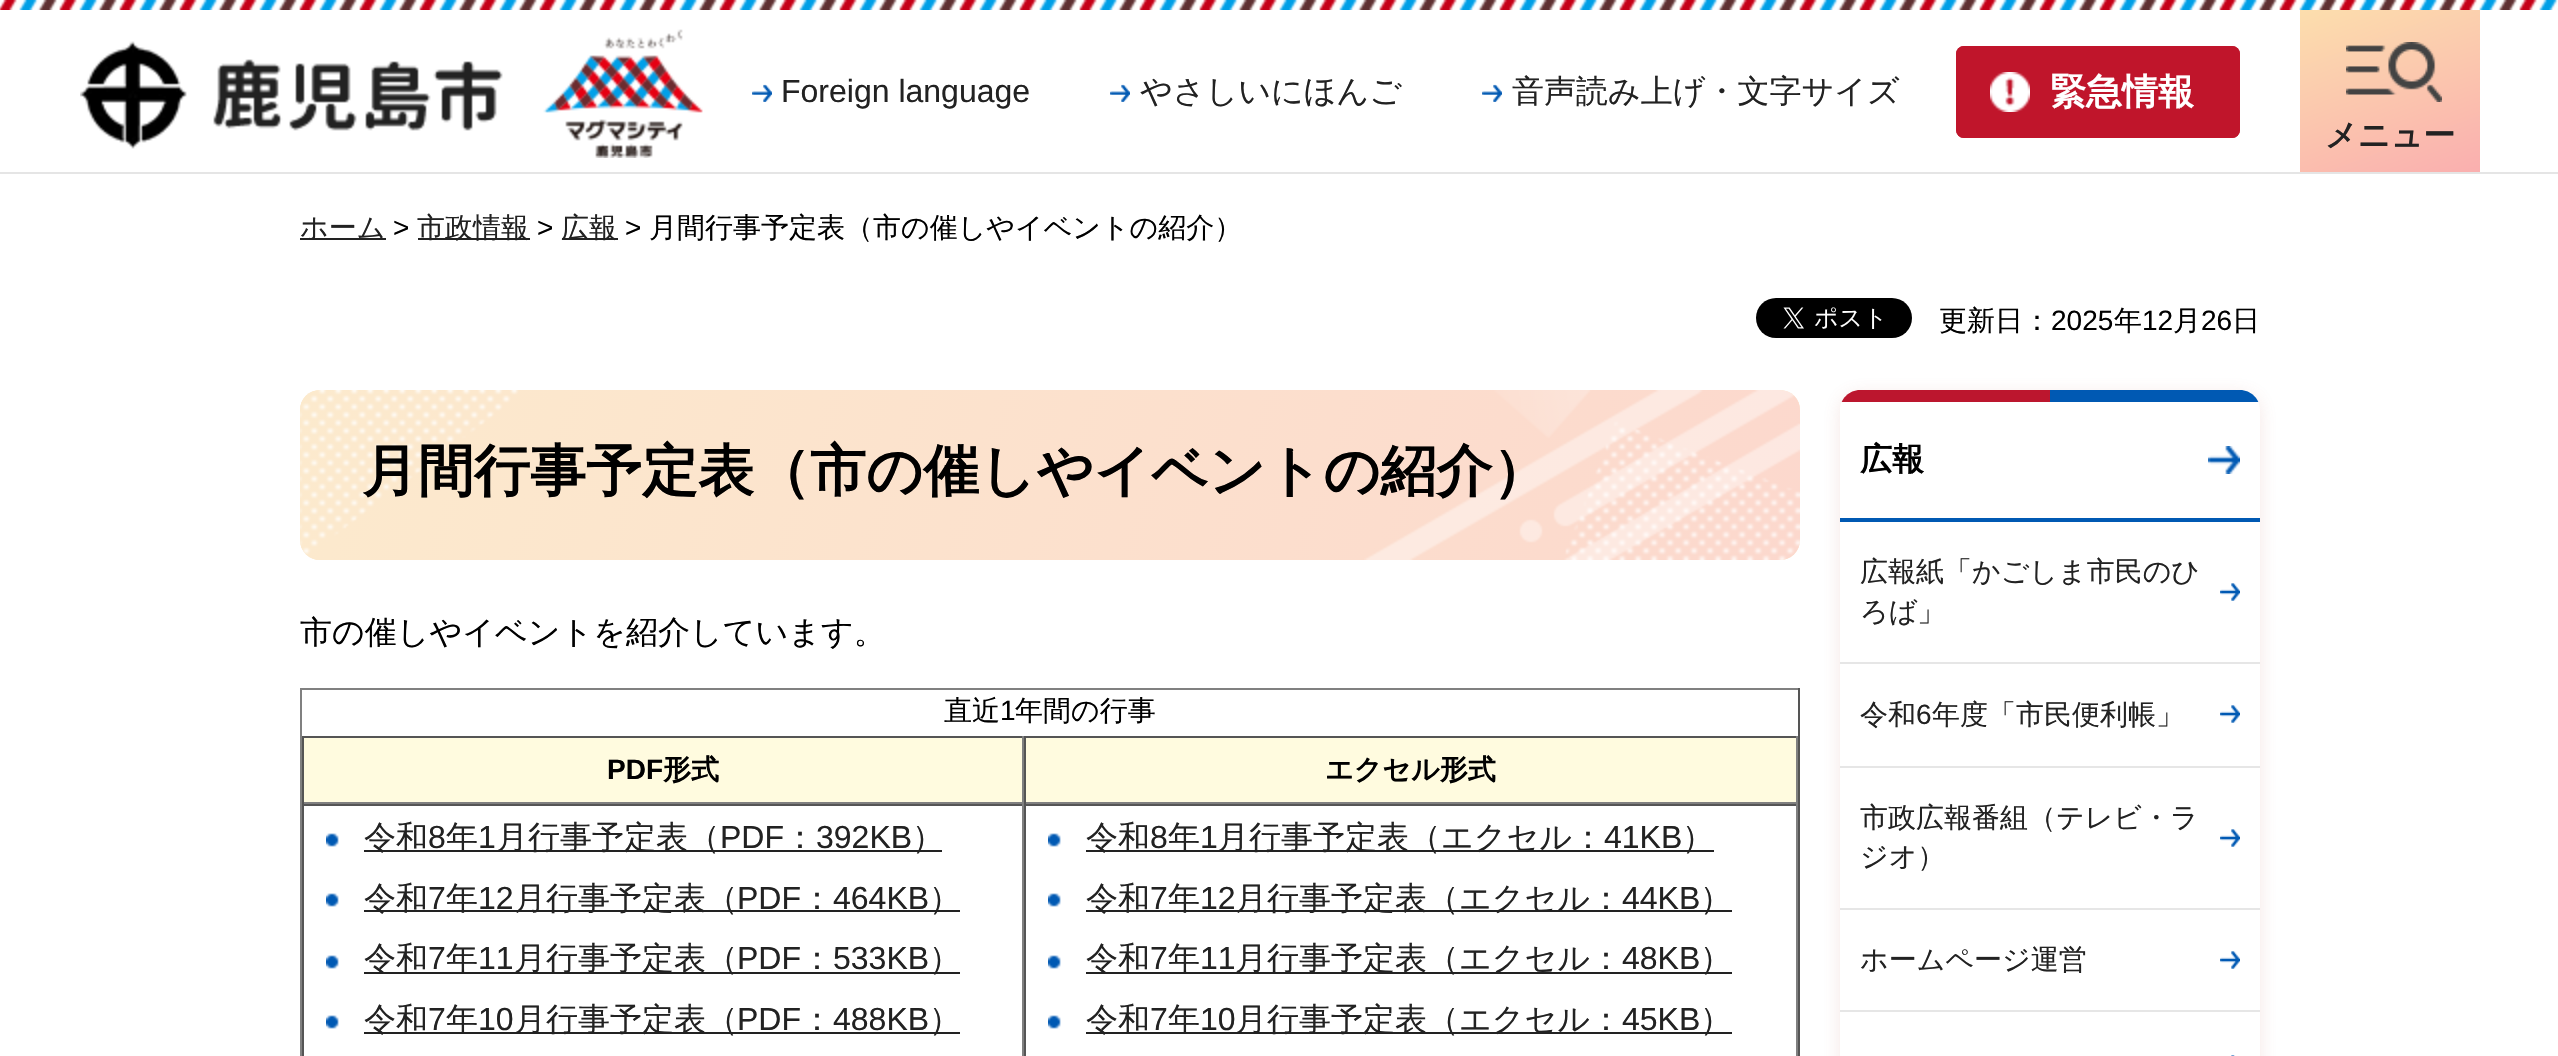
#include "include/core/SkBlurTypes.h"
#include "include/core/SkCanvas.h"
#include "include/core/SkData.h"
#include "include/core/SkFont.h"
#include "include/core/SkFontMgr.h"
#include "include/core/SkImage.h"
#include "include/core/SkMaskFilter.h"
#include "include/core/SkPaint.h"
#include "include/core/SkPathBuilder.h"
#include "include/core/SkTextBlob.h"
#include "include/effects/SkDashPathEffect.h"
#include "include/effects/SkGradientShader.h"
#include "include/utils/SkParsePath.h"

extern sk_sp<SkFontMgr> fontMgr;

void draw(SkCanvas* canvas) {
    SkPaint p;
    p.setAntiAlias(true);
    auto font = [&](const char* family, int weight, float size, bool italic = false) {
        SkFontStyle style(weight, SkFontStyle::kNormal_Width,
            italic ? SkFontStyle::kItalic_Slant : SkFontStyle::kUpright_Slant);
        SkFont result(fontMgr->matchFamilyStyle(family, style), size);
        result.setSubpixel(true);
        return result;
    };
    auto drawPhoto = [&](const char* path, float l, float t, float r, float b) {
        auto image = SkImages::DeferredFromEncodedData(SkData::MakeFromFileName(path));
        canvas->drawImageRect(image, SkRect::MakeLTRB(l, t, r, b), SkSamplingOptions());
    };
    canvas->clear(0xFFFFFFFF);
    drawPhoto("media/1.png", 0, 0, 2558, 10);
    p.setColor(0xFFE5E5E5);
    canvas->drawRect(SkRect::MakeLTRB(0, 172, 2558, 174), p);
    drawPhoto("media/2.png", 80, 41, 503, 149);
    drawPhoto("media/3.png", 543, 29, 703, 158);
    drawPhoto("media/4.png", 752, 84, 772, 102);
    auto font1 = font("Liberation Sans", 400, 32);
    p.setColor(0xFF222222);
    canvas->drawString("Foreign language", 781, 102, font1, p);
    drawPhoto("media/4.png", 1110, 84, 1130, 102);
    auto font2 = font("WenQuanYi Zen Hei", 500, 32);
    canvas->drawString("やさしいにほんご", 1140, 102, font2, p);
    drawPhoto("media/4.png", 1482, 84, 1502, 102);
    canvas->drawString("音声読み上げ・文字サイズ", 1512, 102, font2, p);
    p.setColor(0xFFC0152B);
    canvas->drawRoundRect(SkRect::MakeLTRB(1956, 46, 2240, 138), 8, 8, p);
    drawPhoto("media/5.png", 1990, 72, 2030, 112);
    p.setStyle(SkPaint::kStroke_Style);
    p.setStrokeWidth(2);
    canvas->drawRoundRect(SkRect::MakeLTRB(1957, 47, 2239, 137), 7, 7, p);
    auto font3 = font("WenQuanYi Zen Hei", 700, 36);
    p.setStyle(SkPaint::kFill_Style);
    p.setColor(0xFFFFFFFF);
    canvas->drawString("緊急情報", 2050, 104, font3, p);
    {
        const SkColor colors[] = {0xFFFAAFAF, 0xFFFCDEAD};
        const float stops[] = {0, 1};
        const SkPoint ends[] = {{2427, 191}, {2353, -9}};
        p.setShader(SkGradientShader::MakeLinear(ends, colors, stops, 2, SkTileMode::kClamp));
        p.setAlpha(255);
    }
    canvas->drawRect(SkRect::MakeLTRB(2300, 10, 2480, 172), p);
    drawPhoto("media/6.png", 2346, 42, 2442, 102);
    auto font4 = font("WenQuanYi Zen Hei", 700, 32);
    p.setShader(nullptr);
    p.setColor(0xFF222222);
    canvas->drawString("メニュー", 2325, 146, font4, p);
    canvas->drawRect(SkRect::MakeLTRB(300, 238, 386, 240), p);
    auto font5 = font("WenQuanYi Zen Hei", 500, 28);
    canvas->drawString("ホーム", 300, 237, font5, p);
    auto font6 = font("Liberation Sans", 400, 28);
    p.setColor(0xFF000000);
    canvas->drawString(">", 393, 237, font6, p);
    p.setColor(0xFF222222);
    canvas->drawRect(SkRect::MakeLTRB(418, 238, 530, 240), p);
    canvas->drawString("市政情報", 417, 237, font5, p);
    p.setColor(0xFF000000);
    canvas->drawString(">", 537, 237, font6, p);
    p.setColor(0xFF222222);
    canvas->drawRect(SkRect::MakeLTRB(562, 238, 618, 240), p);
    canvas->drawString("広報", 561, 237, font5, p);
    p.setColor(0xFF000000);
    canvas->drawString(">", 625, 237, font6, p);
    canvas->drawString("月間行事予定表（市の催しやイベントの紹介）", 649, 237, font5, p);
    drawPhoto("media/7.png", 1756, 298, 1912, 338);
    canvas->drawString("更新日：", 1939, 330, font5, p);
    canvas->drawString("2025", 2051, 330, font6, p);
    canvas->drawString("年", 2114, 330, font5, p);
    canvas->drawString("12", 2142, 330, font6, p);
    canvas->drawString("月", 2173, 330, font5, p);
    canvas->drawString("26", 2201, 330, font6, p);
    canvas->drawString("日", 2232, 330, font5, p);
    p.setColor(0xFFFCEACD);
    canvas->drawRoundRect(SkRect::MakeLTRB(300, 390, 1800, 560), 20, 20, p);
    drawPhoto("media/8.png", 300, 390, 1800, 560);
    auto font7 = font("WenQuanYi Zen Hei", 700, 56);
    p.setColor(0xFF000000);
    canvas->drawString("月間行事予定表（市の催しやイベントの紹介）", 362, 490, font7, p);
    canvas->drawString("市の催しやイベントを紹介しています。", 300, 643, font2, p);
    {
        const struct { float l, t, r, b; SkColor color; } items[] = {
            {300, 688, 1800, 690, 0xFF808080},
            {1798, 688, 1800, 1056, 0xFF555555},
            {300, 688, 302, 1056, 0xFF808080},
        };
        for (auto [l, t, r, b, color] : items) {
            p.setColor(color);
            canvas->drawRect(SkRect::MakeLTRB(l, t, r, b), p);
        }
    }
    p.setColor(0xFF000000);
    canvas->drawString("直近", 944, 720, font5, p);
    canvas->drawString("1", 1000, 720, font6, p);
    canvas->drawString("年間の行事", 1015, 720, font5, p);
    {
        const struct { float l, t, r, b; SkColor color; } items[] = {
            {304, 738, 1022, 802, 0xFFFFFBDF},
            {302, 736, 1798, 738, 0xFF555555},
            {1022, 736, 1024, 804, 0xFF808080},
            {302, 802, 1024, 804, 0xFF808080},
            {302, 736, 304, 804, 0xFF555555},
        };
        for (auto [l, t, r, b, color] : items) {
            p.setColor(color);
            canvas->drawRect(SkRect::MakeLTRB(l, t, r, b), p);
        }
    }
    auto font8 = font("Liberation Sans", 700, 28);
    p.setColor(0xFF000000);
    canvas->drawString("PDF", 607, 779, font8, p);
    auto font9 = font("WenQuanYi Zen Hei", 700, 28);
    canvas->drawString("形式", 663, 779, font9, p);
    {
        const struct { float l, t, r, b; SkColor color; } items[] = {
            {1026, 738, 1796, 802, 0xFFFFFBDF},
            {1796, 736, 1798, 804, 0xFF808080},
            {1024, 802, 1798, 804, 0xFF808080},
            {1024, 736, 1026, 804, 0xFF555555},
        };
        for (auto [l, t, r, b, color] : items) {
            p.setColor(color);
            canvas->drawRect(SkRect::MakeLTRB(l, t, r, b), p);
        }
    }
    p.setColor(0xFF000000);
    canvas->drawString("エクセル形式", 1325, 779, font9, p);
    {
        const struct { float l, t, r, b; SkColor color; } items[] = {
            {302, 804, 1798, 806, 0xFF555555},
            {1022, 804, 1024, 1056, 0xFF808080},
            {302, 804, 304, 1056, 0xFF555555},
        };
        for (auto [l, t, r, b, color] : items) {
            p.setColor(color);
            canvas->drawRect(SkRect::MakeLTRB(l, t, r, b), p);
        }
    }
    drawPhoto("media/9.png", 326, 833, 339, 847);
    p.setColor(0xFF222222);
    canvas->drawRect(SkRect::MakeLTRB(364, 850, 942, 852), p);
    canvas->drawString("令和", 364, 848, font2, p);
    canvas->drawString("8", 428, 848, font1, p);
    canvas->drawString("年", 446, 848, font2, p);
    canvas->drawString("1", 478, 848, font1, p);
    canvas->drawString("月行事予定表（", 496, 848, font2, p);
    canvas->drawString("PDF", 720, 848, font1, p);
    canvas->drawString("：", 784, 848, font2, p);
    canvas->drawString("392KB", 816, 848, font1, p);
    canvas->drawString("）", 912, 848, font2, p);
    drawPhoto("media/9.png", 326, 893, 339, 907);
    canvas->drawRect(SkRect::MakeLTRB(364, 910, 960, 912), p);
    canvas->drawString("令和", 364, 909, font2, p);
    canvas->drawString("7", 428, 909, font1, p);
    canvas->drawString("年", 446, 909, font2, p);
    canvas->drawString("12", 478, 909, font1, p);
    canvas->drawString("月行事予定表（", 514, 909, font2, p);
    canvas->drawString("PDF", 737, 909, font1, p);
    canvas->drawString("：", 801, 909, font2, p);
    canvas->drawString("464KB", 833, 909, font1, p);
    canvas->drawString("）", 929, 909, font2, p);
    drawPhoto("media/9.png", 326, 955, 339, 969);
    canvas->drawRect(SkRect::MakeLTRB(364, 972, 960, 974), p);
    canvas->drawString("令和", 364, 969, font2, p);
    canvas->drawString("7", 428, 969, font1, p);
    canvas->drawString("年", 446, 969, font2, p);
    canvas->drawString("11", 478, 969, font1, p);
    canvas->drawString("月行事予定表（", 514, 969, font2, p);
    canvas->drawString("PDF", 737, 969, font1, p);
    canvas->drawString("：", 801, 969, font2, p);
    canvas->drawString("533KB", 833, 969, font1, p);
    canvas->drawString("）", 929, 969, font2, p);
    drawPhoto("media/9.png", 326, 1015, 339, 1029);
    canvas->drawRect(SkRect::MakeLTRB(364, 1032, 960, 1034), p);
    canvas->drawString("令和", 364, 1030, font2, p);
    canvas->drawString("7", 428, 1030, font1, p);
    canvas->drawString("年", 446, 1030, font2, p);
    canvas->drawString("10", 478, 1030, font1, p);
    canvas->drawString("月行事予定表（", 514, 1030, font2, p);
    canvas->drawString("PDF", 737, 1030, font1, p);
    canvas->drawString("：", 801, 1030, font2, p);
    canvas->drawString("488KB", 833, 1030, font1, p);
    canvas->drawString("）", 929, 1030, font2, p);
    p.setColor(0xFF808080);
    canvas->drawRect(SkRect::MakeLTRB(1796, 804, 1798, 1056), p);
    p.setColor(0xFF555555);
    canvas->drawRect(SkRect::MakeLTRB(1024, 804, 1026, 1056), p);
    drawPhoto("media/9.png", 1048, 833, 1061, 847);
    p.setColor(0xFF222222);
    canvas->drawRect(SkRect::MakeLTRB(1086, 850, 1714, 852), p);
    canvas->drawString("令和", 1086, 848, font2, p);
    canvas->drawString("8", 1150, 848, font1, p);
    canvas->drawString("年", 1168, 848, font2, p);
    canvas->drawString("1", 1200, 848, font1, p);
    canvas->drawString("月行事予定表（エクセル：", 1217, 848, font2, p);
    canvas->drawString("41KB", 1604, 848, font1, p);
    canvas->drawString("）", 1682, 848, font2, p);
    drawPhoto("media/9.png", 1048, 893, 1061, 907);
    canvas->drawRect(SkRect::MakeLTRB(1086, 910, 1732, 912), p);
    canvas->drawString("令和", 1086, 909, font2, p);
    canvas->drawString("7", 1150, 909, font1, p);
    canvas->drawString("年", 1168, 909, font2, p);
    canvas->drawString("12", 1200, 909, font1, p);
    canvas->drawString("月行事予定表（エクセル：", 1235, 909, font2, p);
    canvas->drawString("44KB", 1622, 909, font1, p);
    canvas->drawString("）", 1700, 909, font2, p);
    drawPhoto("media/9.png", 1048, 955, 1061, 969);
    canvas->drawRect(SkRect::MakeLTRB(1086, 972, 1732, 974), p);
    canvas->drawString("令和", 1086, 969, font2, p);
    canvas->drawString("7", 1150, 969, font1, p);
    canvas->drawString("年", 1168, 969, font2, p);
    canvas->drawString("11", 1200, 969, font1, p);
    canvas->drawString("月行事予定表（エクセル：", 1235, 969, font2, p);
    canvas->drawString("48KB", 1622, 969, font1, p);
    canvas->drawString("）", 1700, 969, font2, p);
    drawPhoto("media/9.png", 1048, 1015, 1061, 1029);
    canvas->drawRect(SkRect::MakeLTRB(1086, 1032, 1732, 1034), p);
    canvas->drawString("令和", 1086, 1030, font2, p);
    canvas->drawString("7", 1150, 1030, font1, p);
    canvas->drawString("年", 1168, 1030, font2, p);
    canvas->drawString("10", 1200, 1030, font1, p);
    canvas->drawString("月行事予定表（エクセル：", 1235, 1030, font2, p);
    canvas->drawString("45KB", 1622, 1030, font1, p);
    canvas->drawString("）", 1700, 1030, font2, p);
    canvas->save();
    canvas->clipPath(SkPathBuilder(SkPathFillType::kEvenOdd).moveTo(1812, 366).lineTo(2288, 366).lineTo(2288, 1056).lineTo(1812, 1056).close().moveTo(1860, 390).lineTo(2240, 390).cubicTo(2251, 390, 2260, 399, 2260, 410).lineTo(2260, 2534).cubicTo(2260, 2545, 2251, 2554, 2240, 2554).lineTo(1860, 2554).cubicTo(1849, 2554, 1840, 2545, 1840, 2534).lineTo(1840, 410).cubicTo(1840, 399, 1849, 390, 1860, 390).close().detach(), true);
    p.setColor(0x26BE614F);
    p.setMaskFilter(SkMaskFilter::MakeBlur(kNormal_SkBlurStyle, 9));
    canvas->drawRoundRect(SkRect::MakeLTRB(1840, 394, 2260, 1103), 20, 20, p);
    p.setMaskFilter(nullptr);
    canvas->restore();
    canvas->save();
    canvas->clipPath(SkPathBuilder().moveTo(1860, 390).lineTo(2240, 390).cubicTo(2251, 390, 2260, 399, 2260, 410).lineTo(2260, 2534).cubicTo(2260, 2545, 2251, 2554, 2240, 2554).lineTo(1860, 2554).cubicTo(1849, 2554, 1840, 2545, 1840, 2534).lineTo(1840, 410).cubicTo(1840, 399, 1849, 390, 1860, 390).close().detach(), true);
    p.setColor(0xFFBC162E);
    canvas->drawRect(SkRect::MakeLTRB(1841, 390, 2050, 402), p);
    p.setColor(0xFF0059B3);
    canvas->drawRect(SkRect::MakeLTRB(2050, 390, 2259, 402), p);
    canvas->restore();
    canvas->drawRect(SkRect::MakeLTRB(1840, 518, 2260, 522), p);
    p.setColor(0xFF000000);
    canvas->drawString("広報", 1860, 470, font4, p);
    drawPhoto("media/10.png", 2208, 446, 2240, 474);
    p.setColor(0xFFE6E6E6);
    canvas->drawRect(SkRect::MakeLTRB(1840, 662, 2260, 664), p);
    p.setColor(0xFF222222);
    canvas->drawString("広報紙「かごしま市民のひ", 1860, 581, font5, p);
    drawPhoto("media/11.png", 2220, 583, 2240, 601);
    canvas->drawString("ろば」", 1860, 621, font5, p);
    p.setColor(0xFFE6E6E6);
    canvas->drawRect(SkRect::MakeLTRB(1840, 766, 2260, 768), p);
    p.setColor(0xFF222222);
    canvas->drawString("令和", 1860, 724, font5, p);
    canvas->drawString("6", 1916, 724, font6, p);
    canvas->drawString("年度「市民便利帳」", 1932, 724, font5, p);
    drawPhoto("media/11.png", 2220, 705, 2240, 723);
    p.setColor(0xFFE6E6E6);
    canvas->drawRect(SkRect::MakeLTRB(1840, 908, 2260, 910), p);
    p.setColor(0xFF222222);
    canvas->drawString("市政広報番組（テレビ・ラ", 1860, 827, font5, p);
    drawPhoto("media/11.png", 2220, 829, 2240, 847);
    canvas->drawString("ジオ）", 1860, 866, font5, p);
    p.setColor(0xFFE6E6E6);
    canvas->drawRect(SkRect::MakeLTRB(1840, 1010, 2260, 1012), p);
    p.setColor(0xFF222222);
    canvas->drawString("ホームページ運営", 1860, 969, font5, p);
    drawPhoto("media/11.png", 2220, 951, 2240, 969);
    drawPhoto("media/12.png", 2231, 1055, 2235, 1056);
}
